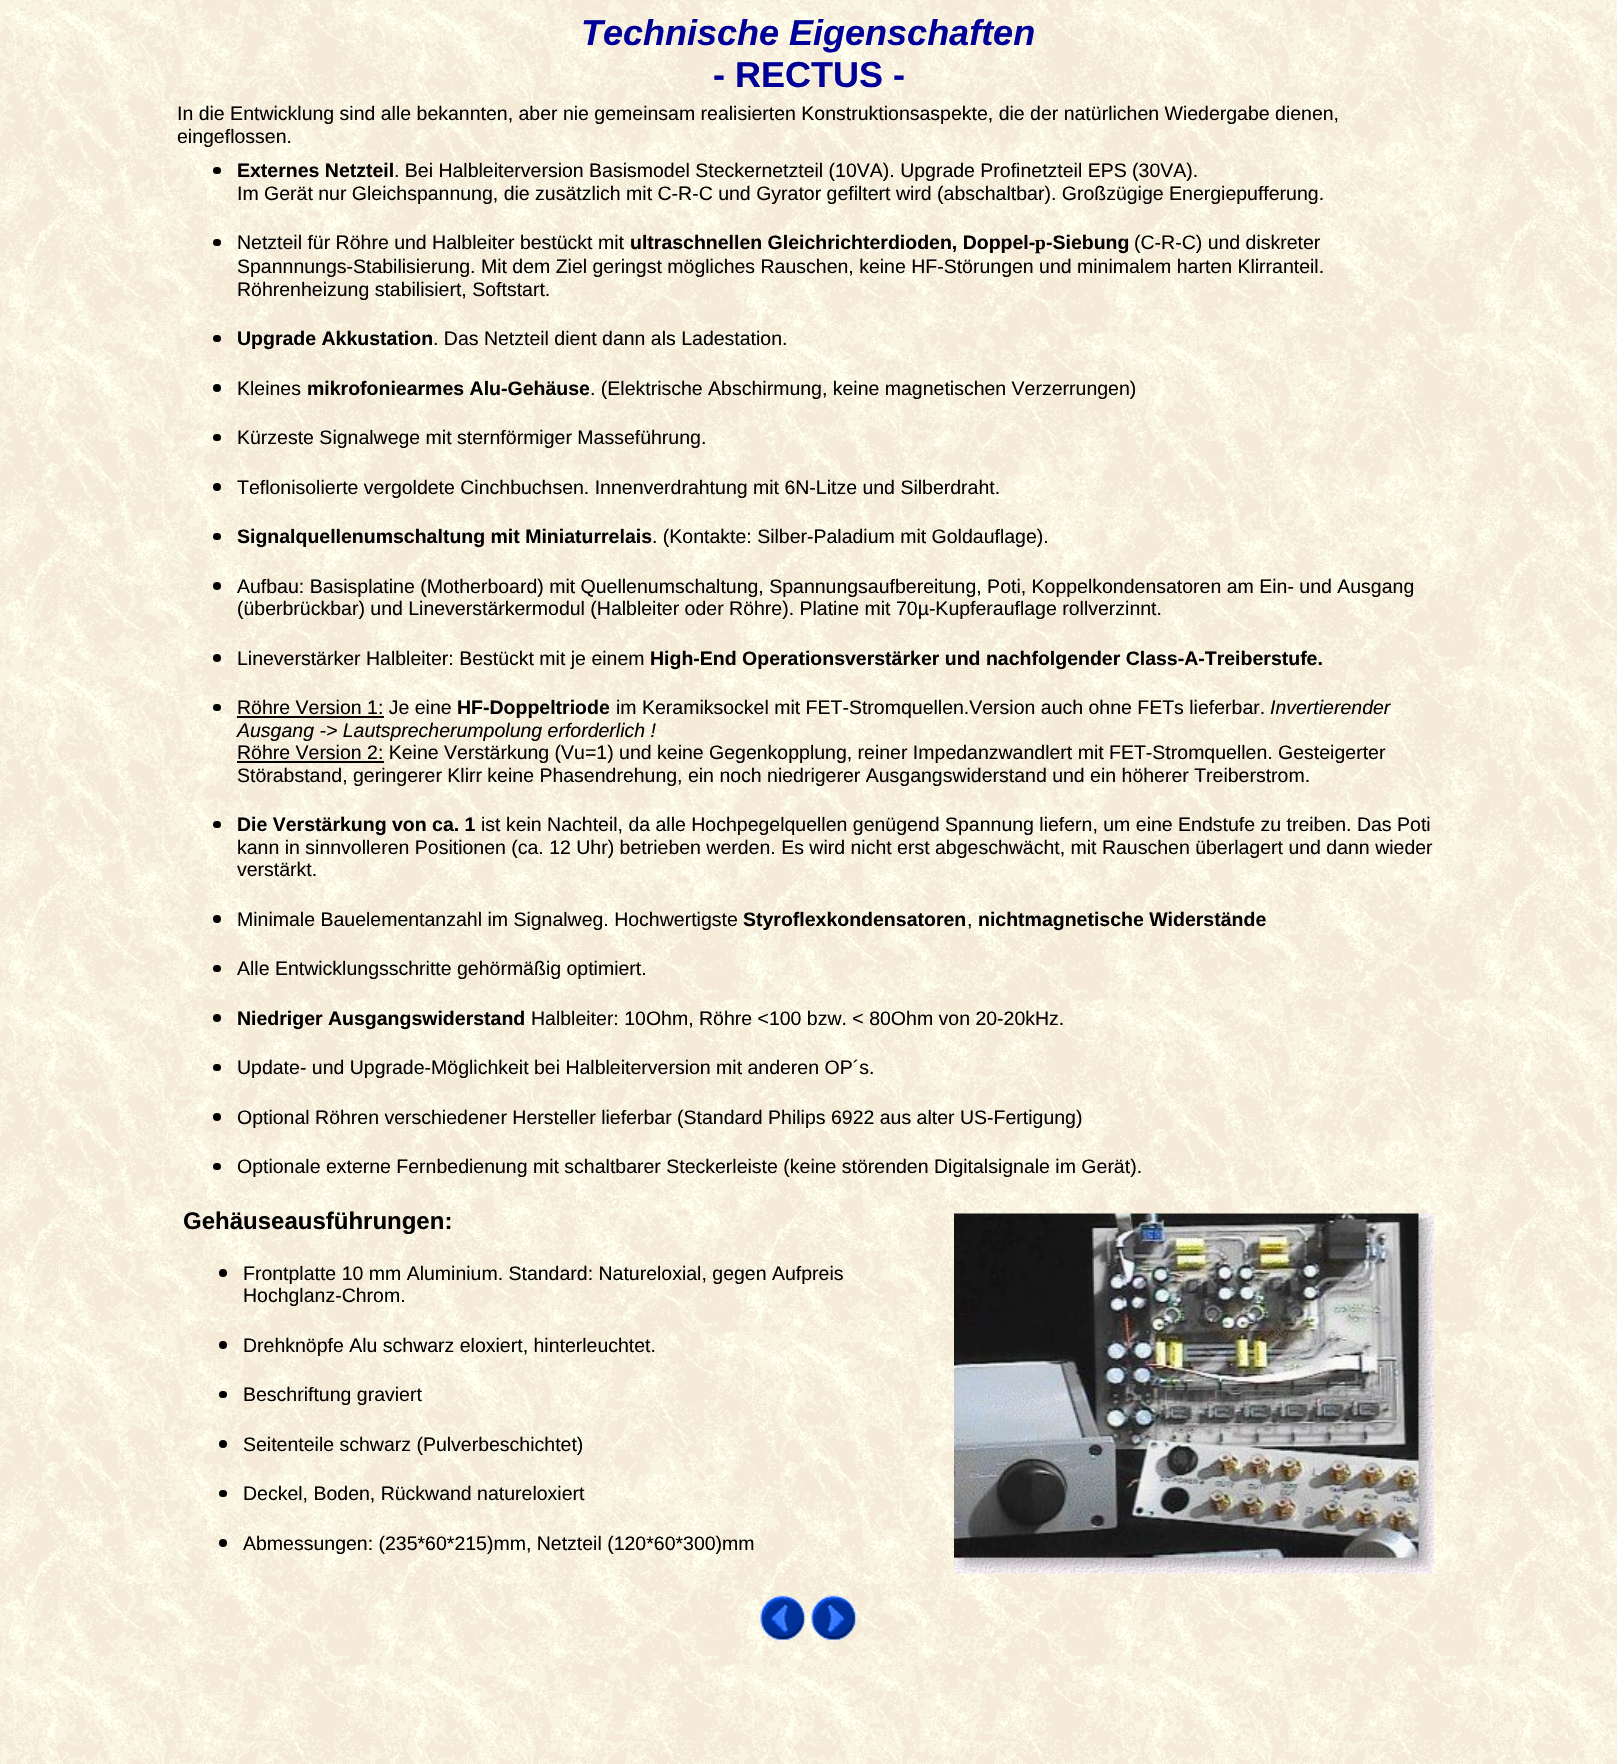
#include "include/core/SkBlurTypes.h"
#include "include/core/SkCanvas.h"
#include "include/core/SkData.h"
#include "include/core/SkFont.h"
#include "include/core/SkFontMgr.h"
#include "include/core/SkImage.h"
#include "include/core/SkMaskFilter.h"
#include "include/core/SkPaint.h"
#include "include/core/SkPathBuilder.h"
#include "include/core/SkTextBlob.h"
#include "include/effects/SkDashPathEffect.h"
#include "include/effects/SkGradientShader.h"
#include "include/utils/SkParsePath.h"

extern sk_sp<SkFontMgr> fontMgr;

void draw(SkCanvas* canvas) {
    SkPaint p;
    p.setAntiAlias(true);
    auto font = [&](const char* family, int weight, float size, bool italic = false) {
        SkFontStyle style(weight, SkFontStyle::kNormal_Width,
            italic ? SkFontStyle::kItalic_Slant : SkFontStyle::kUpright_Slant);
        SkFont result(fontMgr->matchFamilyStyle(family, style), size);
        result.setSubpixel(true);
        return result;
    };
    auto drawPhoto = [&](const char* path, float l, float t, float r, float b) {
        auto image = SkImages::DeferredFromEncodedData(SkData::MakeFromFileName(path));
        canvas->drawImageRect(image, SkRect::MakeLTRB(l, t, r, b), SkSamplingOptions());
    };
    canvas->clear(0xFFFFFFFF);
    drawPhoto("media/1.png", 0, 0, 1617, 1764);
    auto font1 = font("Liberation Sans", 700, 36, true);
    p.setColor(0xFF000099);
    canvas->drawString("Technische Eigenschaften", 581, 45, font1, p);
    auto font2 = font("Liberation Sans", 700, 36);
    canvas->drawString("- RECTUS -", 713, 87, font2, p);
    auto font3 = font("Liberation Sans", 400, 19.5f);
    p.setColor(0xFF000000);
    canvas->drawString("In die Entwicklung sind alle bekannten, aber nie gemeinsam realisierten Konstruktionsaspekte, die der natürlichen Wiedergabe dienen,", 177, 120, font3, p);
    canvas->drawString("eingeflossen.", 177, 143, font3, p);
    canvas->drawRoundRect(SkRect::MakeLTRB(213, 167, 221, 174), 3.5f, 3.5f, p);
    auto font4 = font("Liberation Sans", 700, 19.5f);
    canvas->drawString("Externes Netzteil", 237, 177, font4, p);
    canvas->drawString(". Bei Halbleiterversion Basismodel Steckernetzteil (10VA). Upgrade Profinetzteil EPS (30VA).", 394, 177, font3, p);
    canvas->drawString("Im Gerät nur Gleichspannung, die zusätzlich mit C-R-C und Gyrator gefiltert wird (abschaltbar). Großzügige Energiepufferung.", 237, 200, font3, p);
    canvas->drawRoundRect(SkRect::MakeLTRB(213, 239, 221, 246), 3.5f, 3.5f, p);
    canvas->drawString("Netzteil für Röhre und Halbleiter bestückt mit", 237, 249, font3, p);
    canvas->drawString("ultraschnellen Gleichrichterdioden, Doppel-", 630, 249, font4, p);
    auto font5 = font("Liberation Serif", 700, 19.5f);
    canvas->drawString("p", 1035, 249, font5, p);
    canvas->drawString("-Siebung", 1046, 249, font4, p);
    {
        const struct { const char* s; float x, y; } items[] = {
            {"(C-R-C) und diskreter", 1134, 249},
            {"Spannnungs-Stabilisierung. Mit dem Ziel geringst mögliches Rauschen, keine HF-Störungen und minimalem harten Klirranteil.", 237, 273},
            {"Röhrenheizung stabilisiert, Softstart.", 237, 296},
        };
        for (auto [s, x, y] : items) {
            canvas->drawString(s, x, y, font3, p);
        }
    }
    canvas->drawRoundRect(SkRect::MakeLTRB(213, 335, 221, 342), 3.5f, 3.5f, p);
    canvas->drawString("Upgrade Akkustation", 237, 345, font4, p);
    canvas->drawString(". Das Netzteil dient dann als Ladestation.", 433, 345, font3, p);
    canvas->drawCircle(217, 388, 4, p);
    canvas->drawString("Kleines", 237, 395, font3, p);
    canvas->drawString("mikrofoniearmes Alu-Gehäuse", 307, 395, font4, p);
    canvas->drawString(". (Elektrische Abschirmung, keine magnetischen Verzerrungen)", 590, 395, font3, p);
    canvas->drawRoundRect(SkRect::MakeLTRB(213, 434, 221, 441), 3.5f, 3.5f, p);
    canvas->drawString("Kürzeste Signalwege mit sternförmiger Masseführung.", 237, 444, font3, p);
    canvas->drawCircle(217, 487, 4, p);
    canvas->drawString("Teflonisolierte vergoldete Cinchbuchsen. Innenverdrahtung mit 6N-Litze und Silberdraht.", 237, 494, font3, p);
    canvas->drawRoundRect(SkRect::MakeLTRB(213, 533, 221, 540), 3.5f, 3.5f, p);
    canvas->drawString("Signalquellenumschaltung mit Miniaturrelais", 237, 543, font4, p);
    canvas->drawString(". (Kontakte: Silber-Paladium mit Goldauflage).", 652, 543, font3, p);
    canvas->drawCircle(217, 586, 4, p);
    canvas->drawString("Aufbau: Basisplatine (Motherboard) mit Quellenumschaltung, Spannungsaufbereitung, Poti, Koppelkondensatoren am Ein- und Ausgang", 237, 593, font3, p);
    canvas->drawString("(überbrückbar) und Lineverstärkermodul (Halbleiter oder Röhre). Platine mit 70µ-Kupferauflage rollverzinnt.", 237, 615, font3, p);
    canvas->drawCircle(217, 658, 4, p);
    canvas->drawString("Lineverstärker Halbleiter: Bestückt mit je einem", 237, 665, font3, p);
    canvas->drawString("High-End Operationsverstärker und nachfolgender Class-A-Treiberstufe.", 650, 665, font4, p);
    canvas->drawRoundRect(SkRect::MakeLTRB(213, 704, 221, 711), 3.5f, 3.5f, p);
    canvas->drawString("Röhre Version 1: Je eine", 237, 714, font3, p);
    canvas->drawRect(SkRect::MakeLTRB(237, 716, 384, 718), p);
    canvas->drawString("HF-Doppeltriode", 457, 714, font4, p);
    canvas->drawString("im Keramiksockel mit FET-Stromquellen.Version auch ohne FETs lieferbar.", 616, 714, font3, p);
    auto font6 = font("Liberation Sans", 400, 19.5f, true);
    canvas->drawString("Invertierender", 1270, 714, font6, p);
    canvas->drawString("Ausgang -> Lautsprecherumpolung erforderlich !", 237, 737, font6, p);
    canvas->drawRect(SkRect::MakeLTRB(237, 761, 384, 763), p);
    canvas->drawString("Röhre Version 2: Keine Verstärkung (Vu=1) und keine Gegenkopplung, reiner Impedanzwandlert mit FET-Stromquellen. Gesteigerter", 237, 759, font3, p);
    canvas->drawString("Störabstand, geringerer Klirr keine Phasendrehung, ein noch niedrigerer Ausgangswiderstand und ein höherer Treiberstrom.", 237, 782, font3, p);
    canvas->drawRoundRect(SkRect::MakeLTRB(213, 821, 221, 828), 3.5f, 3.5f, p);
    canvas->drawString("Die Verstärkung von ca. 1", 237, 831, font4, p);
    {
        const struct { const char* s; float x, y; } items[] = {
            {"ist kein Nachteil, da alle Hochpegelquellen genügend Spannung liefern, um eine Endstufe zu treiben. Das Poti", 481, 831},
            {"kann in sinnvolleren Positionen (ca. 12 Uhr) betrieben werden. Es wird nicht erst abgeschwächt, mit Rauschen überlagert und dann wieder", 237, 854},
            {"verstärkt.", 237, 876},
        };
        for (auto [s, x, y] : items) {
            canvas->drawString(s, x, y, font3, p);
        }
    }
    canvas->drawCircle(217, 919, 4, p);
    canvas->drawString("Minimale Bauelementanzahl im Signalweg. Hochwertigste", 237, 926, font3, p);
    canvas->drawString("Styroflexkondensatoren", 743, 926, font4, p);
    canvas->drawString(",", 967, 926, font3, p);
    canvas->drawString("nichtmagnetische Widerstände", 978, 926, font4, p);
    canvas->drawRoundRect(SkRect::MakeLTRB(213, 965, 221, 972), 3.5f, 3.5f, p);
    canvas->drawString("Alle Entwicklungsschritte gehörmäßig optimiert.", 237, 975, font3, p);
    canvas->drawCircle(217, 1018, 4, p);
    canvas->drawString("Niedriger Ausgangswiderstand", 237, 1025, font4, p);
    canvas->drawString("Halbleiter: 10Ohm, Röhre <100 bzw. < 80Ohm von 20-20kHz.", 531, 1025, font3, p);
    canvas->drawRoundRect(SkRect::MakeLTRB(213, 1064, 221, 1071), 3.5f, 3.5f, p);
    canvas->drawString("Update- und Upgrade-Möglichkeit bei Halbleiterversion mit anderen OP´s.", 237, 1074, font3, p);
    canvas->drawCircle(217, 1117, 4, p);
    canvas->drawString("Optional Röhren verschiedener Hersteller lieferbar (Standard Philips 6922 aus alter US-Fertigung)", 237, 1124, font3, p);
    canvas->drawRoundRect(SkRect::MakeLTRB(213, 1163, 221, 1170), 3.5f, 3.5f, p);
    canvas->drawString("Optionale externe Fernbedienung mit schaltbarer Steckerleiste (keine störenden Digitalsignale im Gerät).", 237, 1173, font3, p);
    auto font7 = font("Liberation Sans", 700, 24);
    canvas->drawString("Gehäuseausführungen:", 183, 1229, font7, p);
    canvas->drawCircle(223, 1273, 4, p);
    canvas->drawString("Frontplatte 10 mm Aluminium. Standard: Natureloxial, gegen Aufpreis", 243, 1280, font3, p);
    canvas->drawString("Hochglanz-Chrom.", 243, 1302, font3, p);
    canvas->drawCircle(223, 1345, 4, p);
    canvas->drawString("Drehknöpfe Alu schwarz eloxiert, hinterleuchtet.", 243, 1352, font3, p);
    canvas->drawRoundRect(SkRect::MakeLTRB(219, 1391, 227, 1398), 3.5f, 3.5f, p);
    canvas->drawString("Beschriftung graviert", 243, 1401, font3, p);
    canvas->drawCircle(223, 1444, 4, p);
    canvas->drawString("Seitenteile schwarz (Pulverbeschichtet)", 243, 1451, font3, p);
    canvas->drawRoundRect(SkRect::MakeLTRB(219, 1490, 227, 1497), 3.5f, 3.5f, p);
    canvas->drawString("Deckel, Boden, Rückwand natureloxiert", 243, 1500, font3, p);
    canvas->drawCircle(223, 1543, 4, p);
    canvas->drawString("Abmessungen: (235*60*215)mm, Netzteil (120*60*300)mm", 243, 1550, font3, p);
    drawPhoto("media/2.png", 954, 1213, 1434, 1574);
    drawPhoto("media/3.png", 760, 1595, 806, 1643);
    drawPhoto("media/4.png", 811, 1595, 857, 1643);
}
